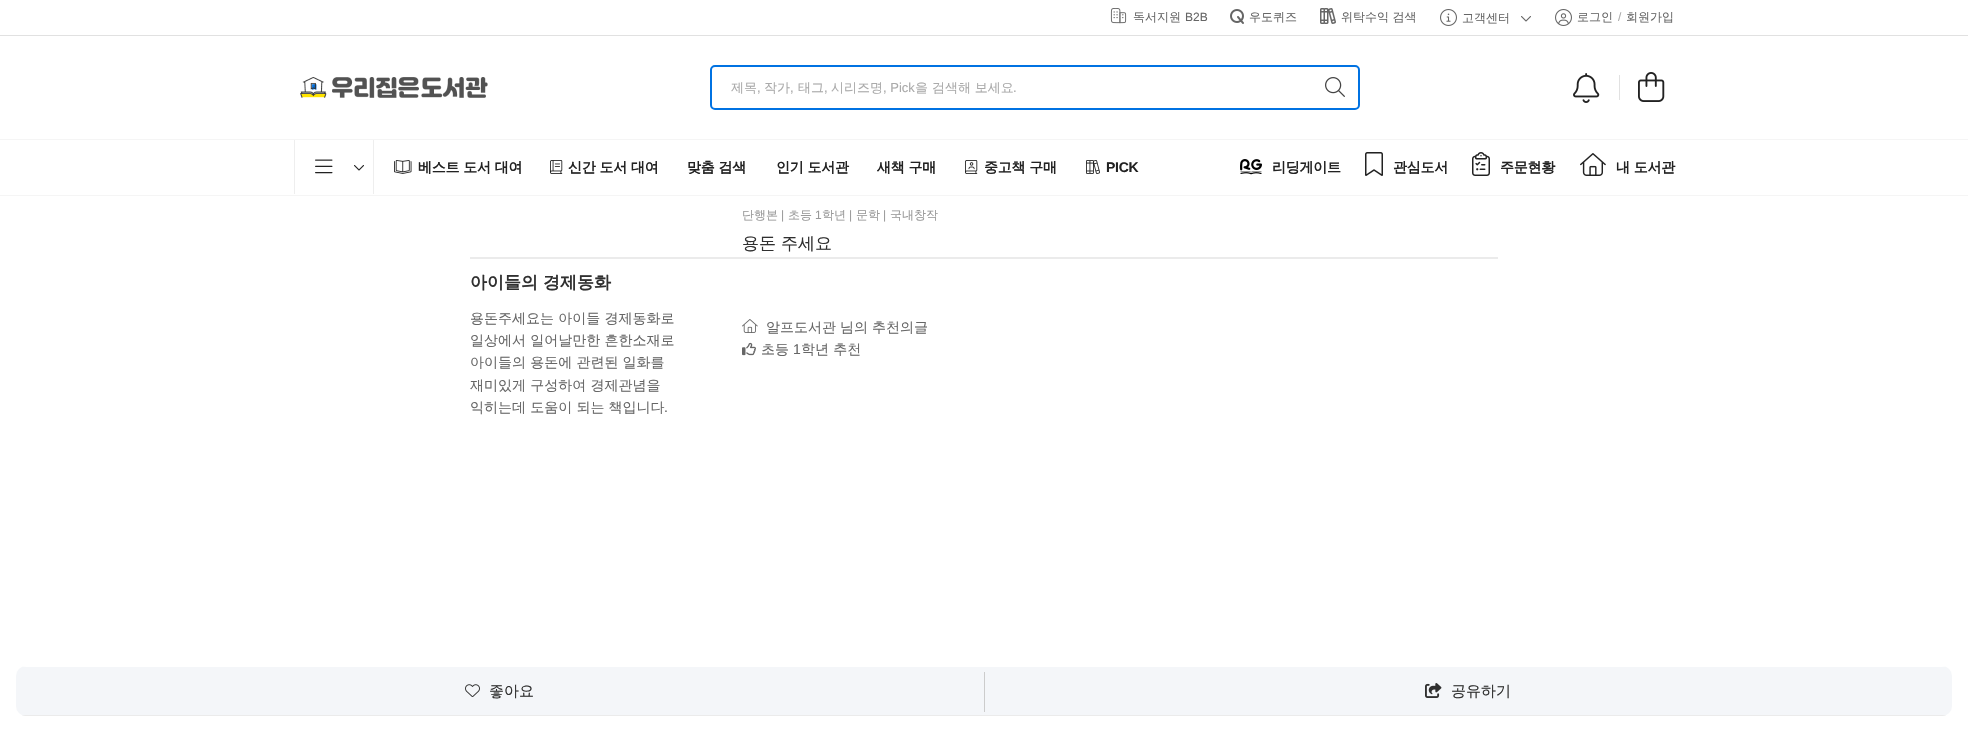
#include "include/core/SkBlurTypes.h"
#include "include/core/SkCanvas.h"
#include "include/core/SkData.h"
#include "include/core/SkFont.h"
#include "include/core/SkFontMgr.h"
#include "include/core/SkImage.h"
#include "include/core/SkMaskFilter.h"
#include "include/core/SkPaint.h"
#include "include/core/SkPathBuilder.h"
#include "include/core/SkTextBlob.h"
#include "include/effects/SkDashPathEffect.h"
#include "include/effects/SkGradientShader.h"
#include "include/utils/SkParsePath.h"

extern sk_sp<SkFontMgr> fontMgr;

void draw(SkCanvas* canvas) {
    SkPaint p;
    p.setAntiAlias(true);
    auto font = [&](const char* family, int weight, float size, bool italic = false) {
        SkFontStyle style(weight, SkFontStyle::kNormal_Width,
            italic ? SkFontStyle::kItalic_Slant : SkFontStyle::kUpright_Slant);
        SkFont result(fontMgr->matchFamilyStyle(family, style), size);
        result.setSubpixel(true);
        return result;
    };
    auto drawTracked = [&](const char* s, float x, float y, const SkFont& font, const SkPaint& ink, float letter, float word) {
        std::vector<SkGlyphID> glyphs(font.countText(s, strlen(s), SkTextEncoding::kUTF8));
        std::vector<float> xs(glyphs.size());
        font.textToGlyphs(s, strlen(s), SkTextEncoding::kUTF8, glyphs);
        font.getXPos(glyphs, xs, x);
        float extra = 0;
        for (size_t i = 0; i < glyphs.size(); i++) {
            xs[i] += extra;
            extra += letter + word * (glyphs[i] == font.unicharToGlyph(' '));
        }
        canvas->drawTextBlob(SkTextBlob::MakeFromPosHGlyphs(glyphs, xs, y, font), 0, 0, ink);
    };
    auto drawPhoto = [&](const char* path, float l, float t, float r, float b) {
        auto image = SkImages::DeferredFromEncodedData(SkData::MakeFromFileName(path));
        canvas->drawImageRect(image, SkRect::MakeLTRB(l, t, r, b), SkSamplingOptions());
    };
    canvas->clear(0xFFFFFFFF);
    p.setColor(0xFFF5F5F5);
    canvas->drawRect(SkRect::MakeLTRB(0, 195, 1968, 196), p);
    p.setColor(0xFFE1E1E1);
    canvas->drawRect(SkRect::MakeLTRB(0, 35, 1968, 36), p);
    drawPhoto("media/1.png", 1110, 8, 1127, 24);
    auto font1 = font("WenQuanYi Zen Hei", 500, 12);
    p.setColor(0xFF666666);
    canvas->drawString("독서지원", 1133, 21, font1, p);
    auto font2 = font("Liberation Sans", 400, 12);
    canvas->drawString("B2B", 1185, 21, font2, p);
    drawPhoto("media/2.png", 1230, 9, 1244, 24);
    canvas->drawString("우도퀴즈", 1249, 21, font1, p);
    drawPhoto("media/3.png", 1320, 8, 1336, 24);
    canvas->drawString("위탁수익 검색", 1341, 21, font1, p);
    drawPhoto("media/4.png", 1440, 9, 1457, 26);
    canvas->drawString("고객센터", 1462, 22, font1, p);
    drawPhoto("media/5.png", 1521, 16, 1531, 22);
    drawPhoto("media/6.png", 1555, 9, 1572, 26);
    canvas->drawString("로그인", 1577, 21, font1, p);
    p.setColor(0xFFAAAAAA);
    canvas->drawString("/", 1618, 21, font2, p);
    p.setColor(0xFF666666);
    canvas->drawString("회원가입", 1626, 21, font1, p);
    drawPhoto("media/7.png", 300, 77, 488, 98);
    p.setStyle(SkPaint::kStroke_Style);
    p.setStrokeWidth(2);
    p.setColor(0xFF0072E2);
    canvas->drawRoundRect(SkRect::MakeLTRB(711, 66, 1359, 109), 4, 4, p);
    auto font3 = font("WenQuanYi Zen Hei", 500, 13);
    p.setStyle(SkPaint::kFill_Style);
    p.setColor(0xFFAAAAAA);
    canvas->drawString("제목", 731, 92, font3, p);
    auto font4 = font("Liberation Sans", 400, 13);
    canvas->drawString(",", 757, 92, font4, p);
    canvas->drawString("작가", 764, 92, font3, p);
    canvas->drawString(",", 790, 92, font4, p);
    canvas->drawString("태그", 798, 92, font3, p);
    canvas->drawString(",", 824, 92, font4, p);
    canvas->drawString("시리즈명", 831, 92, font3, p);
    canvas->drawString(", Pick", 883, 92, font4, p);
    canvas->drawString("을 검색해 보세요", 915, 92, font3, p);
    canvas->drawString(".", 1013, 92, font4, p);
    drawPhoto("media/8.png", 1325, 77, 1345, 97);
    drawPhoto("media/9.png", 1573, 73, 1600, 103);
    p.setColor(0xFFE1E1E1);
    canvas->drawRect(SkRect::MakeLTRB(1619, 75, 1620, 100), p);
    drawPhoto("media/10.png", 1638, 72, 1665, 102);
    {
        const struct { float l, t, r, b; SkColor color; } items[] = {
            {0, 139, 1968, 140, 0xFFF5F5F5},
            {373, 140, 374, 194, 0xFFEEEEEE},
            {294, 140, 295, 194, 0xFFEEEEEE},
        };
        for (auto [l, t, r, b, color] : items) {
            p.setColor(color);
            canvas->drawRect(SkRect::MakeLTRB(l, t, r, b), p);
        }
    }
    drawPhoto("media/11.png", 315, 159, 333, 174);
    drawPhoto("media/12.png", 354, 165, 364, 171);
    drawPhoto("media/13.png", 394, 160, 412, 174);
    auto font5 = font("WenQuanYi Zen Hei", 700, 14);
    p.setColor(0xFF222222);
    drawTracked("베스트 도서 대여", 418, 172, font5, p, -0.25f, 0);
    drawPhoto("media/14.png", 550, 160, 563, 174);
    {
        const struct { const char* s; float x, y; } items[] = {
            {"신간 도서 대여", 568, 172},
            {"맞춤 검색", 687, 172},
            {"인기 도서관", 776, 172},
            {"새책 구매", 877, 172},
        };
        for (auto [s, x, y] : items) {
            drawTracked(s, x, y, font5, p, -0.25f, 0);
        }
    }
    drawPhoto("media/15.png", 965, 160, 978, 174);
    drawTracked("중고책 구매", 984, 172, font5, p, -0.25f, 0);
    drawPhoto("media/16.png", 1086, 160, 1100, 174);
    auto font6 = font("Liberation Sans", 700, 14);
    drawTracked("PICK", 1106, 172, font6, p, -0.25f, 0);
    drawPhoto("media/17.png", 1240, 159, 1262, 175);
    drawTracked("리딩게이트", 1272, 172, font5, p, -0.25f, 0);
    drawPhoto("media/18.png", 1365, 152, 1383, 176);
    drawTracked("관심도서", 1393, 172, font5, p, -0.25f, 0);
    drawPhoto("media/19.png", 1472, 152, 1490, 176);
    drawTracked("주문현황", 1500, 172, font5, p, -0.25f, 0);
    drawPhoto("media/20.png", 1580, 153, 1606, 176);
    drawTracked("내 도서관", 1616, 172, font5, p, -0.25f, 0);
    auto font7 = font("WenQuanYi Zen Hei", 700, 17);
    p.setColor(0xFF303030);
    canvas->drawString("아이들의 경제동화", 470, 288, font7, p);
    auto font8 = font("WenQuanYi Zen Hei", 500, 14);
    p.setColor(0xFF666666);
    {
        const struct { const char* s; float x, y; } items[] = {
            {"용돈주세요는 아이들 경제동화로", 470, 323},
            {"일상에서 일어날만한 흔한소재로", 470, 345},
            {"아이들의 용돈에 관련된 일화를", 470, 367},
            {"재미있게 구성하여 경제관념을", 470, 390},
            {"익히는데 도움이 되는 책입니다", 470, 412},
        };
        for (auto [s, x, y] : items) {
            canvas->drawString(s, x, y, font8, p);
        }
    }
    auto font9 = font("Liberation Sans", 400, 14);
    canvas->drawString(".", 664, 412, font9, p);
    p.setColor(0xFFEBEBEB);
    canvas->drawRect(SkRect::MakeLTRB(470, 257, 1498, 259), p);
    p.setColor(0xFF999999);
    canvas->drawString("단행본", 742, 219, font1, p);
    canvas->drawString("|", 781, 219, font2, p);
    canvas->drawString("초등", 788, 219, font1, p);
    canvas->drawString("1", 815, 219, font2, p);
    canvas->drawString("학년", 822, 219, font1, p);
    canvas->drawString("|", 849, 219, font2, p);
    canvas->drawString("문학", 856, 219, font1, p);
    canvas->drawString("|", 883, 219, font2, p);
    canvas->drawString("국내창작", 890, 219, font1, p);
    auto font10 = font("WenQuanYi Zen Hei", 500, 17);
    p.setColor(0xFF303030);
    canvas->drawString("용돈 주세요", 742, 249, font10, p);
    drawPhoto("media/21.png", 742, 319, 758, 333);
    p.setColor(0xFF666666);
    {
        const struct { const char* s; float x, y; } items[] = {
            {"알프도서관", 766, 332},
            {"님의", 840, 332},
            {"추천의글", 872, 332},
        };
        for (auto [s, x, y] : items) {
            canvas->drawString(s, x, y, font8, p);
        }
    }
    drawPhoto("media/22.png", 742, 342, 756, 356);
    canvas->drawString("초등", 761, 354, font8, p);
    canvas->drawString("1", 793, 354, font9, p);
    canvas->drawString("학년 추천", 801, 354, font8, p);
    p.setColor(0xFFF4F6F9);
    canvas->drawRoundRect(SkRect::MakeLTRB(16, 666, 1952, 716), 10, 10, p);
    canvas->save();
    canvas->clipPath(SkPathBuilder().moveTo(26, 666).lineTo(1942, 666).cubicTo(1947.5f, 666, 1952, 670.5f, 1952, 676).lineTo(1952, 706).cubicTo(1952, 711.5f, 1947.5f, 716, 1942, 716).lineTo(26, 716).cubicTo(20.5f, 716, 16, 711.5f, 16, 706).lineTo(16, 676).cubicTo(16, 670.5f, 20.5f, 666, 26, 666).close().detach(), true);
    p.setColor(0xFFFFFFFF);
    canvas->drawRect(SkRect::MakeLTRB(16, 666, 1952, 667), p);
    p.setColor(0xFFEBEBEB);
    canvas->drawRect(SkRect::MakeLTRB(16, 715, 1952, 716), p);
    canvas->restore();
    drawPhoto("media/23.png", 465, 684, 480, 697);
    auto font11 = font("WenQuanYi Zen Hei", 500, 15);
    p.setColor(0xFF303030);
    canvas->drawString("좋아요", 489, 696, font11, p);
    p.setColor(0xFFCCCCCC);
    canvas->drawRect(SkRect::MakeLTRB(984, 672, 985, 712), p);
    drawPhoto("media/24.png", 1425, 683, 1442, 698);
    p.setColor(0xFF303030);
    canvas->drawString("공유하기", 1451, 696, font11, p);
}
